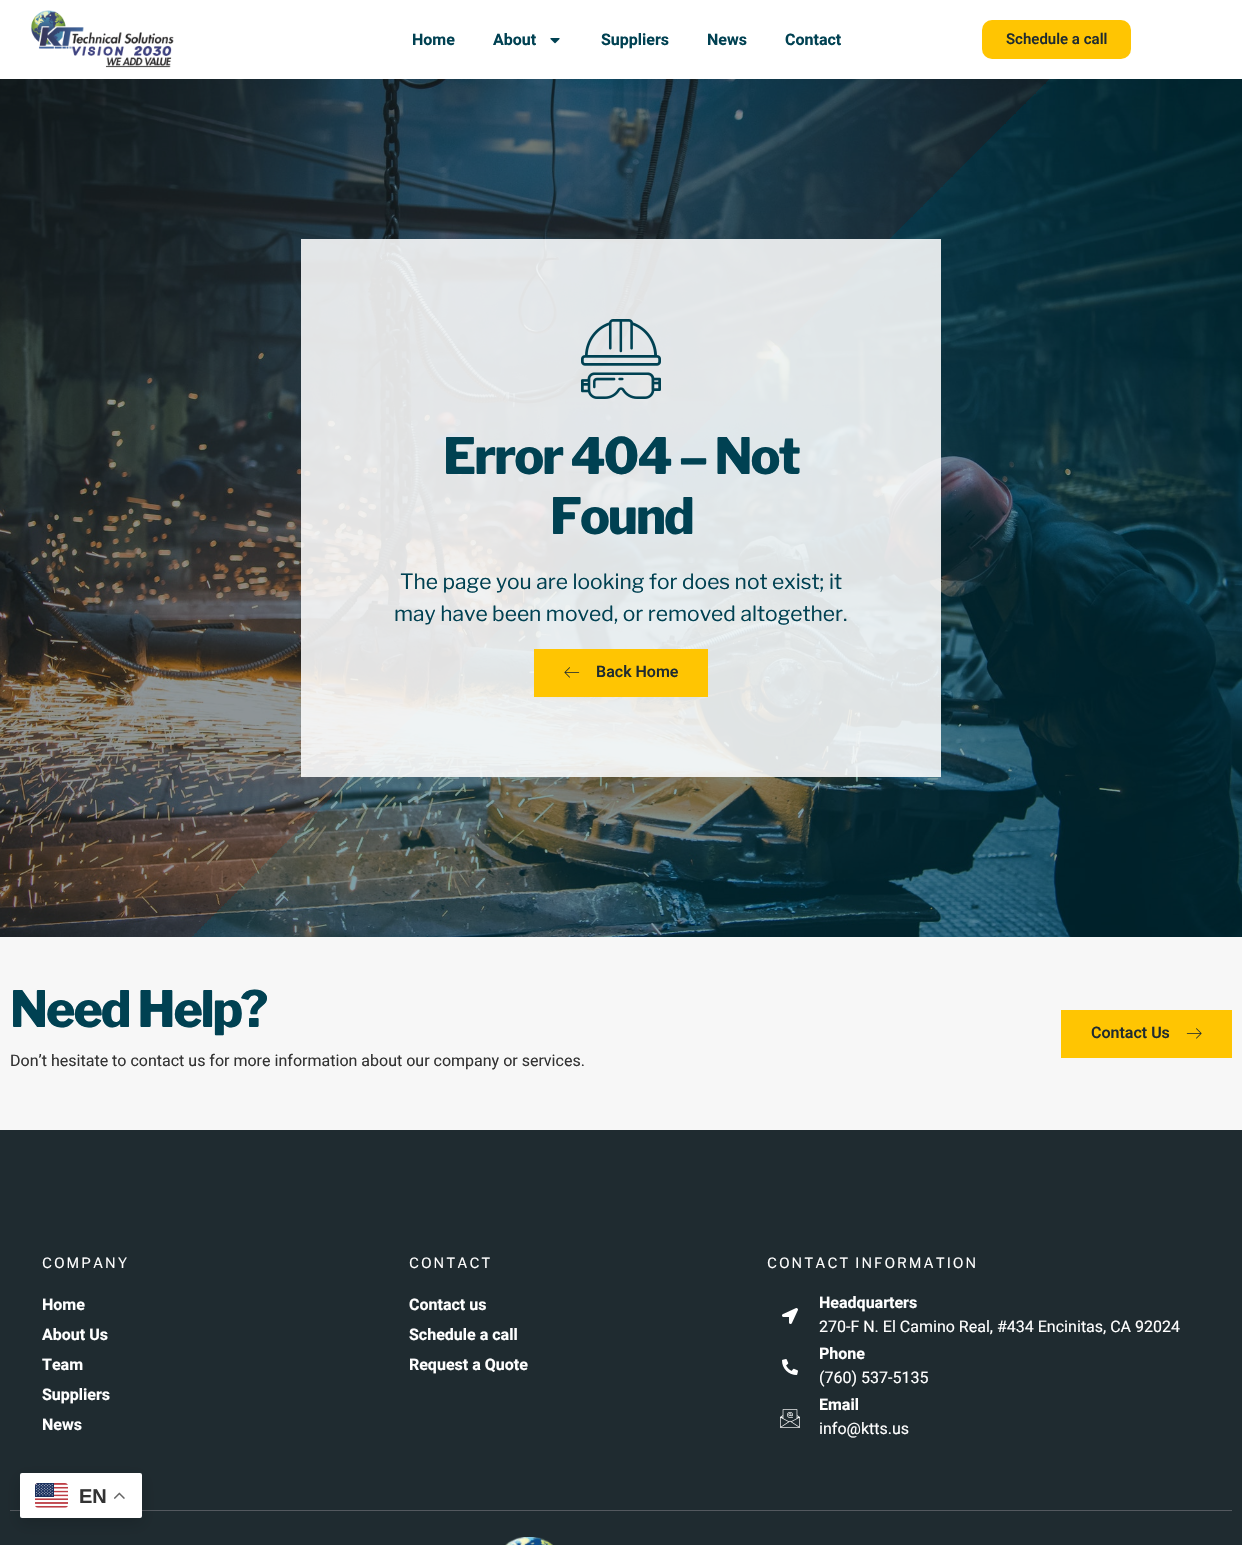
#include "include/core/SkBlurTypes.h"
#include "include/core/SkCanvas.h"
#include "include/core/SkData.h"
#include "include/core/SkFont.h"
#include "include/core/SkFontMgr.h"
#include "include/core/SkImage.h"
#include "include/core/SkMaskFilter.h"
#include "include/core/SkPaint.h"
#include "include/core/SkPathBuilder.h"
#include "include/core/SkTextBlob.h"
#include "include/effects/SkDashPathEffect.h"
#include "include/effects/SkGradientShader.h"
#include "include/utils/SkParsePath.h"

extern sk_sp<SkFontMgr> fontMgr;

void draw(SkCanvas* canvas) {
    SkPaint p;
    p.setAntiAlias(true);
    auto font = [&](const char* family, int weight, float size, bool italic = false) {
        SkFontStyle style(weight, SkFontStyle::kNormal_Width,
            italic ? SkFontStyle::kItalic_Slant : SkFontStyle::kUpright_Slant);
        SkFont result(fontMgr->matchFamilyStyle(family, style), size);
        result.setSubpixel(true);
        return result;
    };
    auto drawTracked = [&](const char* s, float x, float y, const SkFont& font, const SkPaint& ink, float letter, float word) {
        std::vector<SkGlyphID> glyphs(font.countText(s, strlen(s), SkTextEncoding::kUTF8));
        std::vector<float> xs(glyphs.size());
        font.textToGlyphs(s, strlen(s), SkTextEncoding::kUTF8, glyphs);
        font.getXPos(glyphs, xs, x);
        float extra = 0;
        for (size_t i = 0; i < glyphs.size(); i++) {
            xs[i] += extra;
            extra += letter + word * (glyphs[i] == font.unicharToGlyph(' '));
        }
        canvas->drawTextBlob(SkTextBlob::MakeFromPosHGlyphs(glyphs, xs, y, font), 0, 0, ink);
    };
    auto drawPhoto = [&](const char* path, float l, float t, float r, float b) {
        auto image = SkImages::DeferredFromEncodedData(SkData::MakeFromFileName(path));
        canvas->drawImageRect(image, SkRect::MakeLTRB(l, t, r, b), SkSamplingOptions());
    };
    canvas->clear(0xFFFFFFFF);
    drawPhoto("media/1.png", 31, 10, 174, 68);
    auto font1 = font("Heebo", 700, 16);
    p.setColor(0xFF004152);
    canvas->drawString("Home", 412, 45, font1, p);
    canvas->drawString("About", 493, 45, font1, p);
    drawPhoto("media/2.png", 550, 38, 560, 44);
    {
        const struct { const char* s; float x, y; } items[] = {
            {"Suppliers", 601, 45},
            {"News", 707, 45},
            {"Contact", 785, 45},
        };
        for (auto [s, x, y] : items) {
            canvas->drawString(s, x, y, font1, p);
        }
    }
    p.setColor(0xFFFFC502);
    canvas->drawRoundRect(SkRect::MakeLTRB(982, 20, 1131, 59), 10, 10, p);
    auto font2 = font("Heebo", 600, 15);
    p.setColor(0xFF1F2B30);
    canvas->drawString("Schedule a call", 1006, 44, font2, p);
    {
        const SkColor colors[] = {0xFF1F2B30, 0xFF004152};
        const float stops[] = {0.5f, 0.5f};
        const SkPoint ends[] = {{96, -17}, {1146, 1033}};
        p.setShader(SkGradientShader::MakeLinear(ends, colors, stops, 2, SkTileMode::kClamp));
        p.setAlpha(255);
    }
    canvas->drawRect(SkRect::MakeLTRB(0, 79, 1242, 937), p);
    drawPhoto("media/3.png", 0, 79, 1242, 937);
    p.setShader(nullptr);
    p.setColor(0xDEFFFFFF);
    canvas->drawRect(SkRect::MakeLTRB(301, 239, 941, 777), p);
    drawPhoto("media/4.png", 581, 319, 661, 399);
    auto font3 = font("Libre Franklin", 800, 50);
    p.setColor(0xFF004152);
    drawTracked("Error 404 – Not", 443, 474, font3, p, -2, 0);
    drawTracked("Found", 550, 534, font3, p, -2, 0);
    auto font4 = font("Libre Franklin", 400, 21);
    canvas->drawString("The page you are looking for does not exist; it", 400, 589, font4, p);
    canvas->drawString("may have been moved, or removed altogether.", 394, 621, font4, p);
    p.setColor(0xFFFFC502);
    canvas->drawRect(SkRect::MakeLTRB(534, 649, 708, 697), p);
    drawPhoto("media/5.png", 564, 667, 580, 678);
    auto font5 = font("Heebo", 600, 16);
    p.setColor(0xFF1F2B30);
    canvas->drawString("Back Home", 596, 677, font5, p);
    p.setColor(0xFFF7F7F7);
    canvas->drawRect(SkRect::MakeLTRB(0, 937, 1242, 1130), p);
    p.setColor(0xFF004152);
    drawTracked("Need Help?", 10, 1027, font3, p, -2, 0);
    auto font6 = font("Heebo", 400, 16);
    p.setColor(0xFF333333);
    canvas->drawString("Don’t hesitate to contact us for more information about our company or services.", 10, 1066, font6, p);
    p.setColor(0xFFFFC502);
    canvas->drawRect(SkRect::MakeLTRB(1061, 1010, 1232, 1058), p);
    p.setColor(0xFF1F2B30);
    canvas->drawString("Contact Us", 1091, 1038, font5, p);
    drawPhoto("media/6.png", 1186, 1028, 1202, 1039);
    canvas->drawRect(SkRect::MakeLTRB(0, 1130, 1242, 1545), p);
    p.setColor(0xFF54595F);
    canvas->drawRect(SkRect::MakeLTRB(10, 1510, 1232, 1511), p);
    auto font7 = font("Libre Franklin", 400, 14);
    p.setColor(0xFFFFFFFF);
    drawTracked("COMPANY", 42, 1268, font7, p, 2, 0);
    {
        const struct { const char* s; float x, y; } items[] = {
            {"Home", 42, 1310},
            {"About Us", 42, 1340},
            {"Team", 42, 1370},
            {"Suppliers", 42, 1400},
            {"News", 42, 1430},
        };
        for (auto [s, x, y] : items) {
            canvas->drawString(s, x, y, font1, p);
        }
    }
    drawTracked("CONTACT", 409, 1268, font7, p, 2, 0);
    {
        const struct { const char* s; float x, y; } items[] = {
            {"Contact us", 409, 1310},
            {"Schedule a call", 409, 1340},
            {"Request a Quote", 409, 1370},
        };
        for (auto [s, x, y] : items) {
            canvas->drawString(s, x, y, font1, p);
        }
    }
    drawTracked("CONTACT INFORMATION", 767, 1268, font7, p, 2, 0);
    drawPhoto("media/7.png", 782, 1308, 798, 1324);
    canvas->drawString("Headquarters", 819, 1308, font1, p);
    canvas->drawString("270-F N. El Camino Real, #434 Encinitas, CA 92024", 819, 1332, font6, p);
    drawPhoto("media/8.png", 782, 1359, 798, 1375);
    canvas->drawString("Phone", 819, 1359, font1, p);
    canvas->drawString("(760) 537-5135", 819, 1383, font6, p);
    drawPhoto("media/9.png", 780, 1409, 800, 1428);
    canvas->drawString("Email", 819, 1410, font1, p);
    canvas->drawString("info@ktts.us", 819, 1434, font6, p);
    drawPhoto("media/10.png", 505, 1537, 553, 1545);
    p.setColor(0x26000000);
    p.setMaskFilter(SkMaskFilter::MakeBlur(kNormal_SkBlurStyle, 7.5f));
    canvas->drawRoundRect(SkRect::MakeLTRB(20, 1478, 142, 1523), 2, 2, p);
    p.setMaskFilter(nullptr);
    p.setColor(0xFFFFFFFF);
    canvas->drawRoundRect(SkRect::MakeLTRB(20, 1473, 142, 1518), 2, 2, p);
    drawPhoto("media/11.png", 35, 1483, 68, 1508);
    auto font8 = font("Liberation Sans", 700, 20);
    p.setColor(0xFF333333);
    canvas->drawString("EN", 79, 1503, font8, p);
    drawPhoto("media/12.png", 114, 1492, 125, 1499);
}
